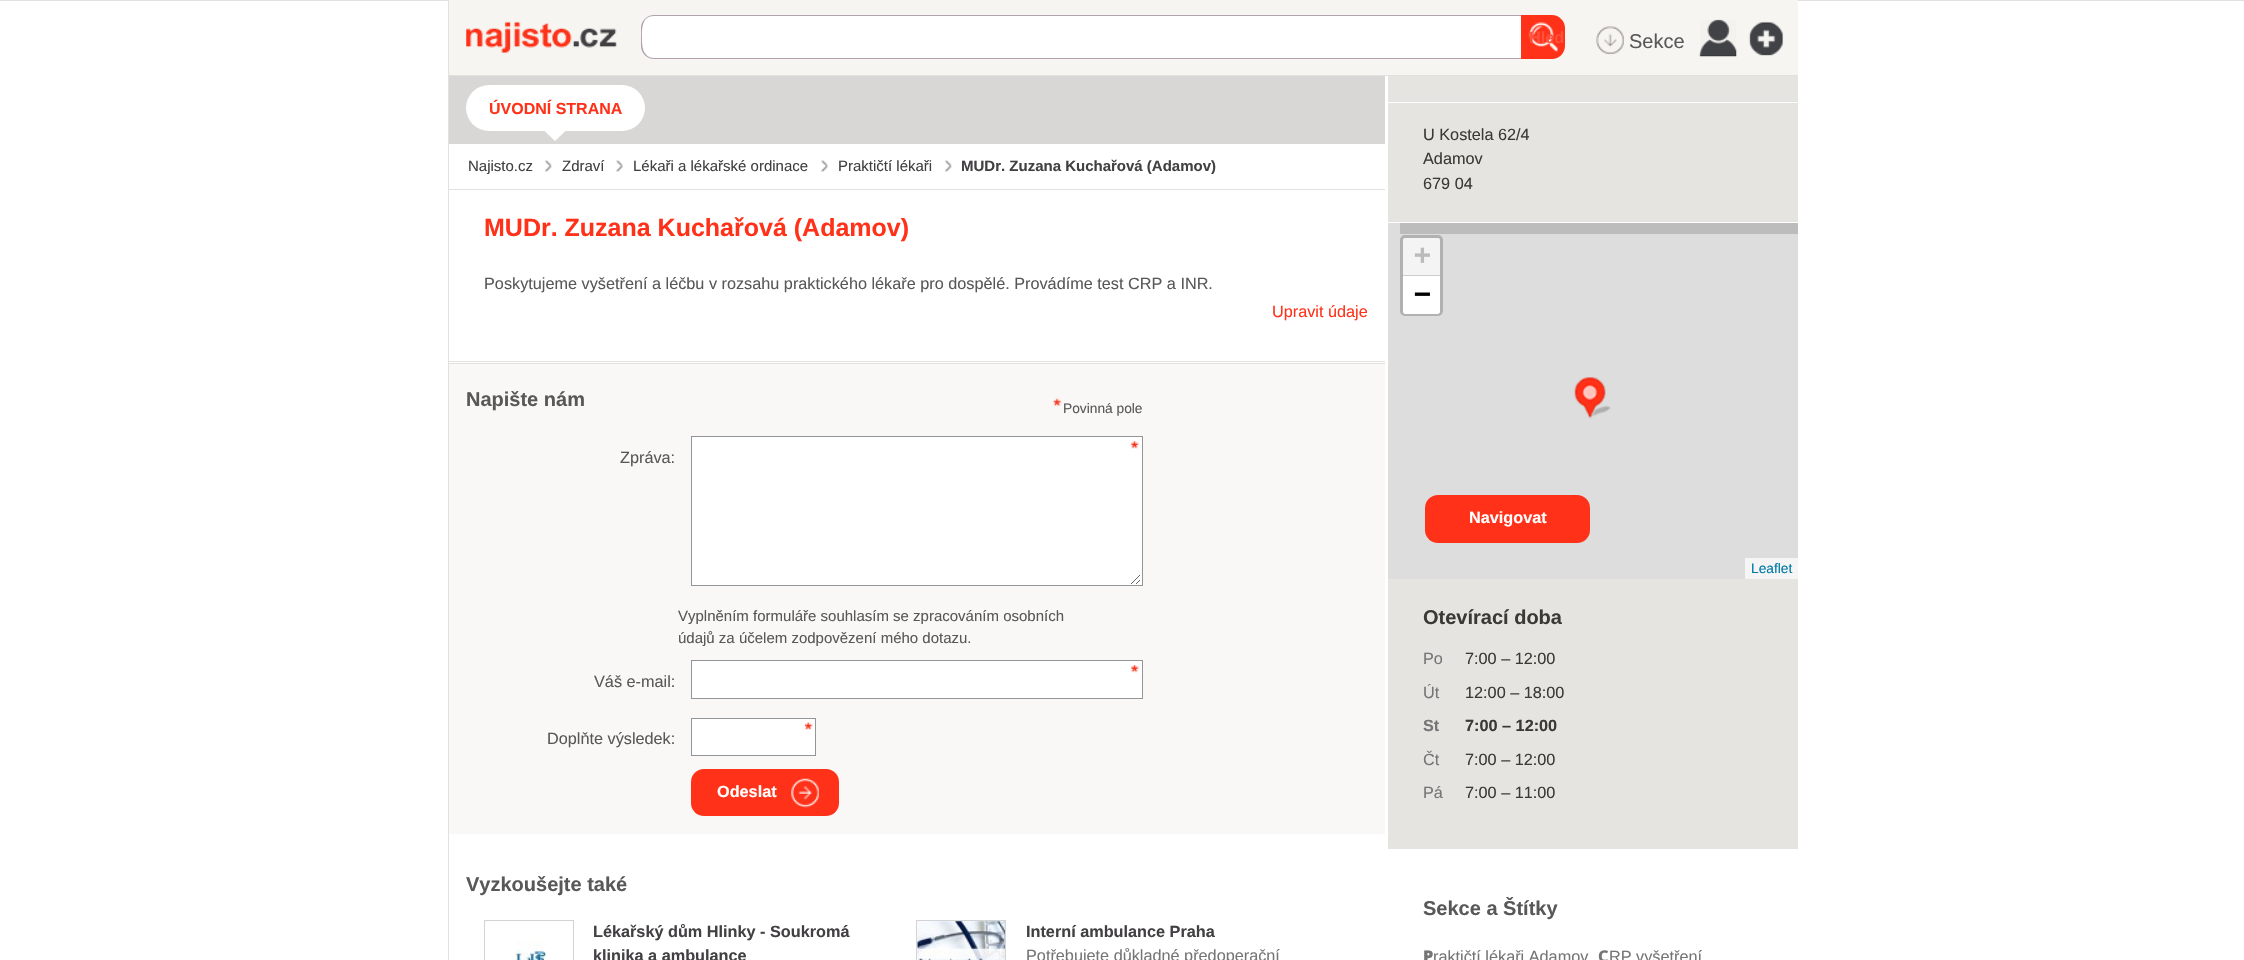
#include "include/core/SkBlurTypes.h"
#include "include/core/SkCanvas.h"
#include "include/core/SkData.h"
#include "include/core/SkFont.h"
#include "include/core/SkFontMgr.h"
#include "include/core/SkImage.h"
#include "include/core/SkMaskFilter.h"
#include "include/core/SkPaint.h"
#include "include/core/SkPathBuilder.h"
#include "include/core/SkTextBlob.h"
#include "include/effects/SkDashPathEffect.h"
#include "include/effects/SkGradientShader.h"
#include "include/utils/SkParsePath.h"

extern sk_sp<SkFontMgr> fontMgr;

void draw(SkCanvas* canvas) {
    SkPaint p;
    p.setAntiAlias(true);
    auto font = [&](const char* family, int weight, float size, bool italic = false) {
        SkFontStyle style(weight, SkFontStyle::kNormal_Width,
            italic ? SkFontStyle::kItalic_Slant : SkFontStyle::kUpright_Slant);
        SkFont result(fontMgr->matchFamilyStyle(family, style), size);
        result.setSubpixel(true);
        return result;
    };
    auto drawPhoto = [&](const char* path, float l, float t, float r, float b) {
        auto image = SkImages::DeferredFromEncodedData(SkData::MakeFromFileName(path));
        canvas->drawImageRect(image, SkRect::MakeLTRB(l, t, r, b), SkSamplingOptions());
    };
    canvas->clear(0xFFFFFFFF);
    {
        const struct { float l, t, r, b; SkColor color; } items[] = {
            {0, 0, 2244, 1, 0xFFE2E1DD},
            {449, 0, 1798, 75, 0xFFF6F5F1},
            {448, 75, 1798, 76, 0xFFE2E1DD},
            {448, 0, 449, 76, 0xFFE2E1DD},
        };
        for (auto [l, t, r, b, color] : items) {
            p.setColor(color);
            canvas->drawRect(SkRect::MakeLTRB(l, t, r, b), p);
        }
    }
    drawPhoto("media/1.png", 466, 21, 617, 54);
    p.setColor(0xFFFFFFFF);
    canvas->drawPath(SkPathBuilder().moveTo(654, 15).lineTo(1521, 15).lineTo(1521, 59).lineTo(654, 59).cubicTo(647, 59, 641, 53, 641, 46).lineTo(641, 28).cubicTo(641, 21, 647, 15, 654, 15).close().detach(), p);
    p.setColor(0xFFB2A1AF);
    canvas->drawPath(SkPathBuilder(SkPathFillType::kEvenOdd).moveTo(654, 15).lineTo(1521, 15).lineTo(1521, 59).lineTo(654, 59).cubicTo(647, 59, 641, 53, 641, 46).lineTo(641, 28).cubicTo(641, 21, 647, 15, 654, 15).close().moveTo(654, 16).lineTo(1521, 16).lineTo(1521, 58).lineTo(654, 58).cubicTo(642, 57, 642, 45, 642, 37).cubicTo(642, 28, 642, 16, 654, 16).close().detach(), p);
    p.setColor(0xFFFF3219);
    canvas->drawPath(SkPathBuilder().moveTo(1521, 15).lineTo(1552, 15).cubicTo(1559, 15, 1565, 21, 1565, 28).lineTo(1565, 46).cubicTo(1565, 53, 1559, 59, 1552, 59).lineTo(1521, 59).close().detach(), p);
    drawPhoto("media/2.png", 1528, 15, 1558, 52);
    auto font1 = font("Liberation Sans", 700, 16.25f);
    p.setColor(0xFFFF503B);
    canvas->drawString("Hled", 1529, 43, font1, p);
    drawPhoto("media/3.png", 1596, 26, 1624, 55);
    auto font2 = font("Liberation Sans", 400, 20);
    p.setColor(0xFF585858);
    canvas->drawString("Sekce", 1629, 48, font2, p);
    drawPhoto("media/4.png", 1698, 19, 1737, 57);
    drawPhoto("media/5.png", 1748, 21, 1784, 56);
    p.setColor(0xFFE3E1E0);
    canvas->drawRect(SkRect::MakeLTRB(448, 76, 449, 960), p);
    p.setColor(0xFFD9D7D5);
    canvas->drawRect(SkRect::MakeLTRB(449, 76, 1385, 144), p);
    p.setColor(0xFFFFFFFF);
    canvas->drawRoundRect(SkRect::MakeLTRB(466, 85, 645, 131), 23, 23, p);
    auto font3 = font("Liberation Sans", 700, 16);
    p.setColor(0xFFFF3219);
    canvas->drawString("ÚVODNÍ STRANA", 489, 114, font3, p);
    p.setColor(0xFFFFFFFF);
    canvas->drawPath(SkPathBuilder().moveTo(542.5f, 129).lineTo(567.5f, 129).lineTo(555, 141).close().detach(), p);
    p.setColor(0xFFE3E1E0);
    canvas->drawRect(SkRect::MakeLTRB(449, 189, 1385, 190), p);
    drawPhoto("media/6.png", 545, 160, 552, 172);
    auto font4 = font("Liberation Sans", 400, 15);
    p.setColor(0xFF424042);
    canvas->drawString("Najisto.cz", 468, 171, font4, p);
    drawPhoto("media/7.png", 616, 160, 623, 172);
    canvas->drawString("Zdraví", 562, 171, font4, p);
    drawPhoto("media/8.png", 821, 160, 828, 172);
    canvas->drawString("Lékaři a lékařské ordinace", 633, 171, font4, p);
    drawPhoto("media/6.png", 945, 160, 952, 172);
    canvas->drawString("Praktičtí lékaři", 838, 171, font4, p);
    auto font5 = font("Liberation Sans", 700, 15);
    canvas->drawString("MUDr. Zuzana Kuchařová (Adamov)", 961, 171, font5, p);
    auto font6 = font("Liberation Sans", 700, 25);
    p.setColor(0xFFFF3219);
    canvas->drawString("MUDr. Zuzana Kuchařová (Adamov)", 484, 236, font6, p);
    auto font7 = font("Liberation Sans", 400, 16.25f);
    p.setColor(0xFF585858);
    canvas->drawString("Poskytujeme vyšetření a léčbu v rozsahu praktického lékaře pro dospělé. Provádíme test CRP a INR.", 484, 289, font7, p);
    p.setColor(0xFFFF3219);
    canvas->drawString("Upravit údaje", 1272, 317, font7, p);
    {
        const struct { float l, t, r, b; SkColor color; } items[] = {
            {449, 361, 1385, 362, 0xFFE3E1E0},
            {449, 364, 1385, 834, 0xFFFAF8F6},
            {449, 363, 1385, 364, 0xFFE3E1E0},
        };
        for (auto [l, t, r, b, color] : items) {
            p.setColor(color);
            canvas->drawRect(SkRect::MakeLTRB(l, t, r, b), p);
        }
    }
    auto font8 = font("Liberation Sans", 700, 20);
    p.setColor(0xFF585858);
    canvas->drawString("Napište nám", 466, 406, font8, p);
    drawPhoto("media/9.png", 1053, 398, 1062, 407);
    auto font9 = font("Liberation Sans", 400, 13.75f);
    canvas->drawString("Povinná pole", 1063, 413, font9, p);
    canvas->drawString("Zpráva:", 620, 463, font7, p);
    p.setColor(0xFFFFFFFF);
    canvas->drawRect(SkRect::MakeLTRB(692, 437, 1142, 585), p);
    drawPhoto("media/10.png", 1131, 441, 1140, 584);
    p.setStyle(SkPaint::kStroke_Style);
    p.setStrokeWidth(1);
    p.setColor(0xFF939699);
    canvas->drawRect(SkRect::MakeLTRB(691.5f, 436.5f, 1142.5f, 585.5f), p);
    p.setStyle(SkPaint::kFill_Style);
    p.setColor(0xFF585858);
    canvas->drawString("Vyplněním formuláře souhlasím se zpracováním osobních", 678, 621, font4, p);
    canvas->drawString("údajů za účelem zodpovězení mého dotazu.", 678, 643, font4, p);
    canvas->drawString("Váš e-mail:", 594, 687, font7, p);
    p.setColor(0xFFFFFFFF);
    canvas->drawRect(SkRect::MakeLTRB(692, 661, 1142, 698), p);
    drawPhoto("media/11.png", 1131, 665, 1139, 673);
    p.setStyle(SkPaint::kStroke_Style);
    p.setColor(0xFF939699);
    canvas->drawRect(SkRect::MakeLTRB(691.5f, 660.5f, 1142.5f, 698.5f), p);
    p.setStyle(SkPaint::kFill_Style);
    p.setColor(0xFF585858);
    canvas->drawString("Doplňte výsledek:", 547, 744, font7, p);
    p.setColor(0xFFFFFFFF);
    canvas->drawRect(SkRect::MakeLTRB(692, 719, 815, 755), p);
    drawPhoto("media/12.png", 805, 722, 813, 730);
    p.setStyle(SkPaint::kStroke_Style);
    p.setColor(0xFF939699);
    canvas->drawRect(SkRect::MakeLTRB(691.5f, 718.5f, 815.5f, 755.5f), p);
    p.setStyle(SkPaint::kFill_Style);
    p.setColor(0xFFFF3219);
    canvas->drawRoundRect(SkRect::MakeLTRB(691, 769, 839, 816), 13, 13, p);
    drawPhoto("media/13.png", 791, 778, 819, 808);
    p.setColor(0xFFFFFFFF);
    canvas->drawString("Odeslat", 717, 797, font1, p);
    p.setColor(0xFF585858);
    canvas->drawString("Vyzkoušejte také", 466, 891, font8, p);
    p.setStyle(SkPaint::kStroke_Style);
    p.setColor(0xFFD1D3D4);
    canvas->drawRect(SkRect::MakeLTRB(484.5f, 920.5f, 573.5f, 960.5f), p);
    drawPhoto("media/14.png", 515, 941, 547, 960);
    p.setStyle(SkPaint::kFill_Style);
    p.setColor(0xFF424042);
    canvas->drawString("Lékařský dům Hlinky - Soukromá", 593, 937, font1, p);
    canvas->drawString("klinika a ambulance", 593, 961, font1, p);
    p.setStyle(SkPaint::kStroke_Style);
    p.setColor(0xFFD1D3D4);
    canvas->drawRect(SkRect::MakeLTRB(916.5f, 920.5f, 1005.5f, 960.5f), p);
    drawPhoto("media/15.png", 917, 921, 1005, 960);
    p.setStyle(SkPaint::kFill_Style);
    p.setColor(0xFF424042);
    canvas->drawString("Interní ambulance Praha", 1026, 937, font1, p);
    p.setColor(0xFF757575);
    canvas->drawString("Potřebujete důkladné předoperační", 1026, 961, font7, p);
    {
        const struct { float l, t, r, b; SkColor color; } items[] = {
            {1388, 76, 1798, 101, 0xFFE6E4E1},
            {1388, 103, 1798, 221, 0xFFE6E4E1},
            {1388, 101, 1798, 102, 0xFFE3E1E0},
            {1388, 221, 1798, 222, 0xFFE3E1E0},
        };
        for (auto [l, t, r, b, color] : items) {
            p.setColor(color);
            canvas->drawRect(SkRect::MakeLTRB(l, t, r, b), p);
        }
    }
    p.setColor(0xFF3B3936);
    {
        const struct { const char* s; float x, y; } items[] = {
            {"U Kostela 62/4", 1423, 140},
            {"Adamov", 1423, 164},
            {"679 04", 1423, 189},
        };
        for (auto [s, x, y] : items) {
            canvas->drawString(s, x, y, font7, p);
        }
    }
    p.setColor(0xFFDDDDDD);
    canvas->drawRect(SkRect::MakeLTRB(1388, 223, 1798, 579), p);
    p.setColor(0xFFBCBCBC);
    canvas->drawRect(SkRect::MakeLTRB(1400, 223, 1798, 234), p);
    p.setStyle(SkPaint::kStroke_Style);
    p.setStrokeWidth(3);
    p.setColor(0xFFB1B1B1);
    canvas->drawRoundRect(SkRect::MakeLTRB(1401.5f, 236.5f, 1441.5f, 314.5f), 3.5f, 3.5f, p);
    p.setStyle(SkPaint::kFill_Style);
    p.setColor(0xFFF4F4F4);
    canvas->drawPath(SkPathBuilder().moveTo(1405.5f, 238).lineTo(1437.5f, 238).cubicTo(1439, 238, 1440, 239, 1440, 240.5f).lineTo(1440, 276).lineTo(1403, 276).lineTo(1403, 240.5f).cubicTo(1403, 239, 1404, 238, 1405.5f, 238).close().detach(), p);
    p.setColor(0xFFCCCCCC);
    canvas->drawRect(SkRect::MakeLTRB(1403, 275, 1440, 276), p);
    auto font10 = font("DejaVu Sans Mono", 700, 28);
    p.setColor(0xFFBBBBBB);
    canvas->drawString("+", 1414, 264, font10, p);
    p.setColor(0xFFFFFFFF);
    canvas->drawPath(SkPathBuilder().moveTo(1403, 276).lineTo(1440, 276).lineTo(1440, 311.5f).cubicTo(1440, 313, 1439, 314, 1437.5f, 314).lineTo(1405.5f, 314).cubicTo(1404, 314, 1403, 313, 1403, 311.5f).close().detach(), p);
    p.setColor(0xFF000000);
    canvas->drawString("−", 1414, 303, font10, p);
    p.setColor(0xFFF5F5F5);
    canvas->drawRect(SkRect::MakeLTRB(1745, 558, 1798, 579), p);
    p.setColor(0xFF0078A8);
    canvas->drawString("Leaflet", 1751, 573, font9, p);
    drawPhoto("media/16.png", 1574, 377, 1611, 419);
    p.setColor(0xFFFF3219);
    canvas->drawRoundRect(SkRect::MakeLTRB(1425, 495, 1590, 543), 13, 13, p);
    p.setColor(0xFFFFFFFF);
    canvas->drawString("Navigovat", 1469, 523, font1, p);
    p.setColor(0xFFE6E4E1);
    canvas->drawRect(SkRect::MakeLTRB(1388, 579, 1798, 849), p);
    p.setColor(0xFF3B3936);
    canvas->drawString("Otevírací doba", 1423, 624, font8, p);
    p.setColor(0xFF757575);
    canvas->drawString("Po", 1423, 664, font7, p);
    p.setColor(0xFF3B3936);
    canvas->drawString("7:00 – 12:00", 1465, 664, font7, p);
    p.setColor(0xFF757575);
    canvas->drawString("Út", 1423, 698, font7, p);
    p.setColor(0xFF3B3936);
    canvas->drawString("12:00 – 18:00", 1465, 698, font7, p);
    p.setColor(0xFF757575);
    canvas->drawString("St", 1423, 731, font1, p);
    p.setColor(0xFF3B3936);
    canvas->drawString("7:00 – 12:00", 1465, 731, font1, p);
    p.setColor(0xFF757575);
    canvas->drawString("Čt", 1423, 765, font7, p);
    p.setColor(0xFF3B3936);
    canvas->drawString("7:00 – 12:00", 1465, 765, font7, p);
    p.setColor(0xFF757575);
    canvas->drawString("Pá", 1423, 798, font7, p);
    p.setColor(0xFF3B3936);
    canvas->drawString("7:00 – 11:00", 1465, 798, font7, p);
    p.setColor(0xFF585858);
    canvas->drawString("Sekce a Štítky", 1423, 915, font8, p);
    auto font11 = font("Noto Sans", 900, 16.25f);
    p.setColor(0xFF757575);
    canvas->drawString("P", 1423, 962, font11, p);
    canvas->drawString("raktičtí lékaři Adamov", 1433, 962, font7, p);
    auto font12 = font("Noto Sans", 800, 16.25f);
    canvas->drawString("C", 1598, 962, font12, p);
    canvas->drawString("RP vyšetření", 1609, 962, font7, p);
}
